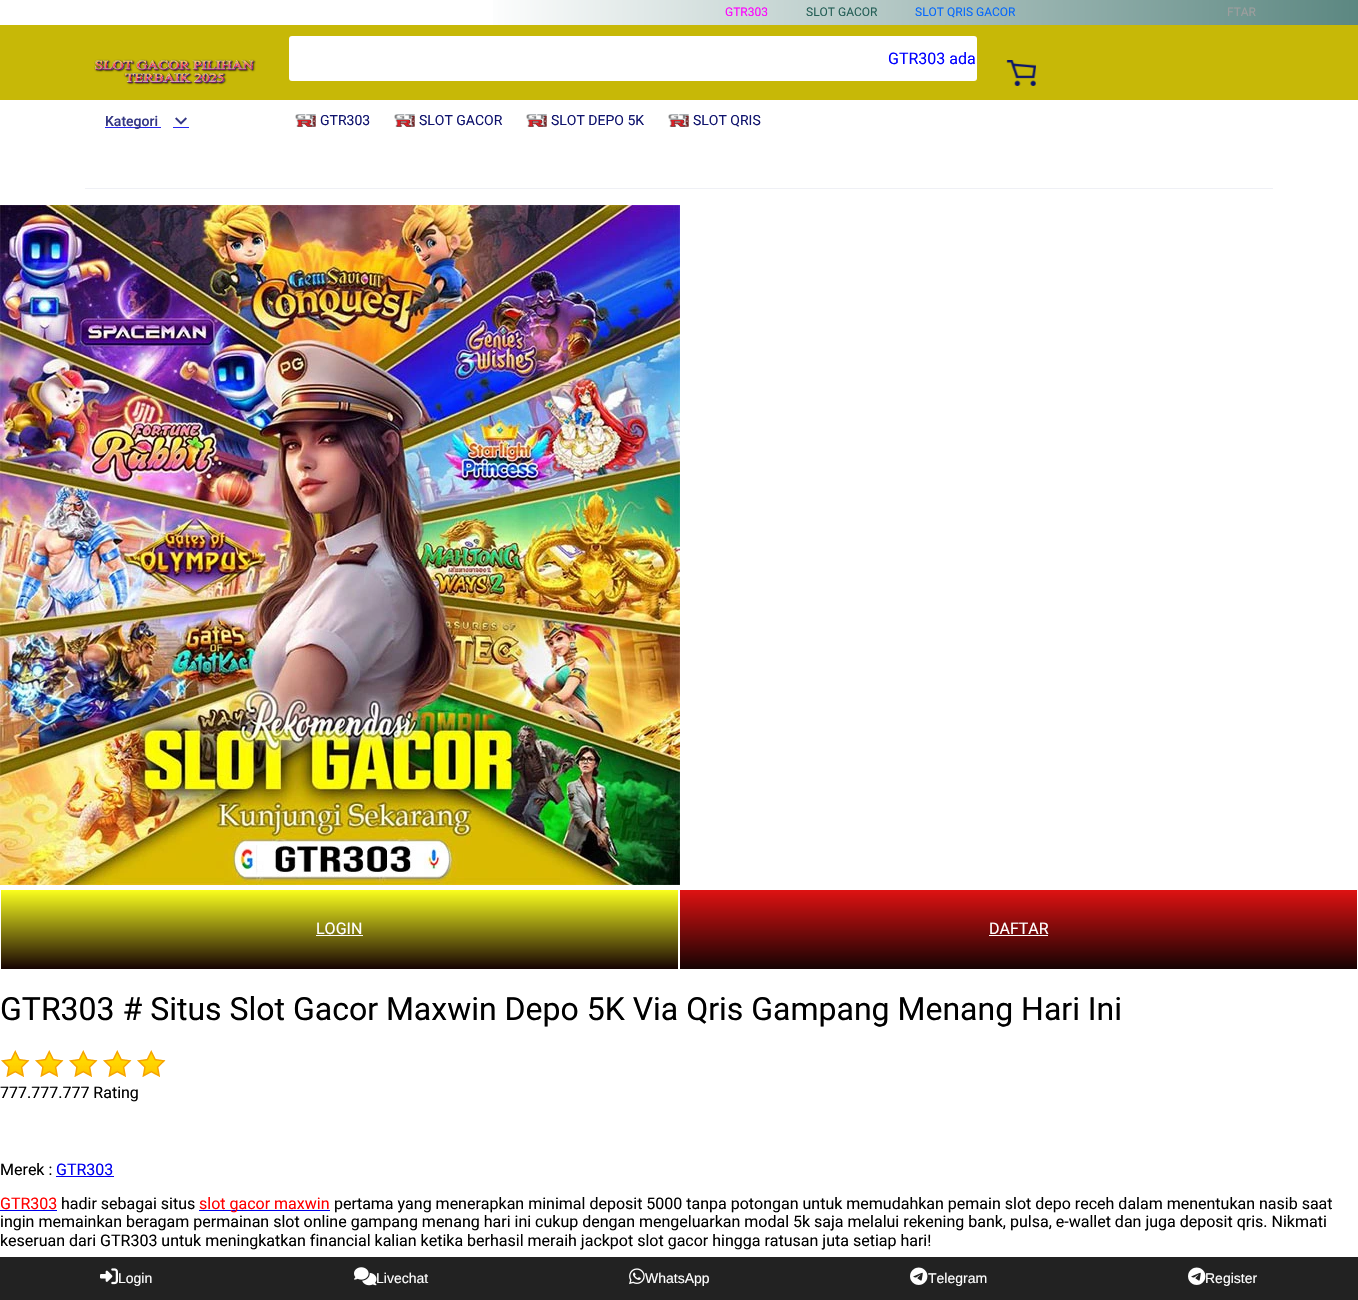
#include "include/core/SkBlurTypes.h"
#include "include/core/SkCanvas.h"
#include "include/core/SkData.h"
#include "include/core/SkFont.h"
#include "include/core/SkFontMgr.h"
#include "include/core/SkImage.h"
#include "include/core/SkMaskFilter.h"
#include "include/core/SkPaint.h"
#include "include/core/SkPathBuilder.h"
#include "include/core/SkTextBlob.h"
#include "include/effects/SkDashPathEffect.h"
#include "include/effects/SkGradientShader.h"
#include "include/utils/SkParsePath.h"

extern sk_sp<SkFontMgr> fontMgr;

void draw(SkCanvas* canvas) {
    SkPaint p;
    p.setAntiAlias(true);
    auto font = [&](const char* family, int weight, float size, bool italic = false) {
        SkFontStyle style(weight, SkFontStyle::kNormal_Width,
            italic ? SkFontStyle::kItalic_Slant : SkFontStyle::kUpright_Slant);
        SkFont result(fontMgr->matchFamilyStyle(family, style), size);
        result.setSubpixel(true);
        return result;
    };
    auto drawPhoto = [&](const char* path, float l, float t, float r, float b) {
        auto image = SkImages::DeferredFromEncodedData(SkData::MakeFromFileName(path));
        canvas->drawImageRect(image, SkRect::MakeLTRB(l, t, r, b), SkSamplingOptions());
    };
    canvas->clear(0xFFFFFFFF);
    {
        const SkColor colors[] = {0xFFFFFFFF, 0xFF255F57};
        const float stops[] = {0.29f, 1};
        const SkPoint ends[] = {{0, 14}, {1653, 10}};
        p.setShader(SkGradientShader::MakeLinear(ends, colors, stops, 2, SkTileMode::kClamp));
        p.setAlpha(255);
    }
    canvas->drawRect(SkRect::MakeLTRB(493, 0, 1358, 25), p);
    auto font1 = font("Roboto", 400, 12);
    p.setShader(nullptr);
    p.setColor(0xFFFF00FF);
    canvas->drawString("GTR303", 725, 16, font1, p);
    p.setColor(0xFF255F57);
    canvas->drawString("SLOT GACOR", 806, 16, font1, p);
    p.setColor(0xFF0568FC);
    canvas->drawString("SLOT QRIS GACOR", 915, 16, font1, p);
    p.setColor(0xFF9E9E9E);
    canvas->drawString("FTAR", 1227, 16, font1, p);
    p.setColor(0xFFC7B807);
    canvas->drawRect(SkRect::MakeLTRB(0, 25, 1358, 100), p);
    drawPhoto("media/1.png", 94, 59, 256, 85);
    p.setColor(0xFFFFFFFF);
    canvas->drawRoundRect(SkRect::MakeLTRB(289, 36, 977, 81), 3, 3, p);
    auto font2 = font("Roboto", 400, 16);
    p.setColor(0xFF0000FF);
    canvas->drawString("GTR303 ada", 888, 64, font2, p);
    drawPhoto("media/2.png", 1006, 60, 1036, 86);
    p.setColor(0xFF2626F1);
    canvas->drawRect(SkRect::MakeLTRB(105, 127, 161, 128), p);
    auto font3 = font("Roboto", 500, 14);
    p.setColor(0xFF333683);
    canvas->drawString("Kategori", 105, 126, font3, p);
    p.setColor(0xFF2626F1);
    canvas->drawRect(SkRect::MakeLTRB(173, 127, 189, 128), p);
    drawPhoto("media/3.png", 175, 117, 187, 125);
    drawPhoto("media/4.png", 295, 114, 316, 127);
    auto font4 = font("Roboto", 400, 14);
    p.setColor(0xFF0F136D);
    canvas->drawString("GTR303", 320, 125, font4, p);
    drawPhoto("media/4.png", 394, 114, 415, 127);
    canvas->drawString("SLOT GACOR", 419, 125, font4, p);
    drawPhoto("media/5.png", 526, 114, 547, 127);
    canvas->drawString("SLOT DEPO 5K", 551, 125, font4, p);
    drawPhoto("media/5.png", 668, 114, 689, 127);
    canvas->drawString("SLOT QRIS", 693, 125, font4, p);
    p.setColor(0xFFEFF0F5);
    canvas->drawRect(SkRect::MakeLTRB(85, 188, 1273, 189), p);
    drawPhoto("media/6.png", 0, 205, 680, 885);
    {
        const SkColor colors[] = {0xFFFAFF1D, 0xFF160303};
        const float stops[] = {0, 1};
        const SkPoint ends[] = {{340, 890}, {340, 969}};
        p.setShader(SkGradientShader::MakeLinear(ends, colors, stops, 2, SkTileMode::kClamp));
        p.setAlpha(255);
    }
    canvas->drawRect(SkRect::MakeLTRB(1, 890, 678, 969), p);
    p.setShader(nullptr);
    p.setColor(0xFFFFFFFF);
    canvas->drawString("LOGIN", 316, 934, font2, p);
    canvas->drawRect(SkRect::MakeLTRB(316, 935, 363, 936), p);
    {
        const SkColor colors[] = {0xFFDF1212, 0xFF160303};
        const float stops[] = {0, 1};
        const SkPoint ends[] = {{1019, 890}, {1019, 969}};
        p.setShader(SkGradientShader::MakeLinear(ends, colors, stops, 2, SkTileMode::kClamp));
        p.setAlpha(255);
    }
    canvas->drawRect(SkRect::MakeLTRB(680, 890, 1357, 969), p);
    p.setShader(nullptr);
    p.setColor(0xFFFFFFFF);
    canvas->drawString("DAFTAR", 989, 934, font2, p);
    canvas->drawRect(SkRect::MakeLTRB(989, 935, 1048, 936), p);
    auto font5 = font("Roboto", 400, 32);
    p.setColor(0xFF000000);
    canvas->drawString("GTR303 # Situs Slot Gacor Maxwin Depo 5K Via Qris Gampang Menang Hari Ini", 0, 1020, font5, p);
    drawPhoto("media/7.png", 1, 1050, 30, 1077);
    drawPhoto("media/7.png", 35, 1050, 64, 1077);
    drawPhoto("media/7.png", 69, 1050, 98, 1077);
    drawPhoto("media/7.png", 103, 1050, 132, 1077);
    drawPhoto("media/7.png", 137, 1050, 166, 1077);
    canvas->drawString("777.777.777 Rating", 0, 1098, font2, p);
    canvas->drawString("Merek :", 0, 1175, font2, p);
    p.setColor(0xFF0000EE);
    canvas->drawString("GTR303", 56, 1175, font2, p);
    canvas->drawRect(SkRect::MakeLTRB(56, 1176, 114, 1177), p);
    p.setColor(0xFFFF0000);
    canvas->drawString("GTR303", 0, 1209, font2, p);
    p.setColor(0xFF0000EE);
    canvas->drawRect(SkRect::MakeLTRB(0, 1210, 57, 1211), p);
    p.setColor(0xFF000000);
    canvas->drawString("hadir sebagai situs", 61, 1209, font2, p);
    p.setColor(0xFF0000EE);
    canvas->drawRect(SkRect::MakeLTRB(199, 1210, 330, 1211), p);
    p.setColor(0xFFFF0000);
    canvas->drawString("slot gacor maxwin", 199, 1209, font2, p);
    p.setColor(0xFF000000);
    {
        const struct { const char* s; float x, y; } items[] = {
            {"pertama yang menerapkan minimal deposit 5000 tanpa potongan untuk memudahkan pemain slot depo receh dalam menentukan nasib saat", 334, 1209},
            {"ingin memainkan beragam permainan slot online gampang menang hari ini cukup dengan mengeluarkan modal 5k saja melalui rekening bank, pulsa, e-wallet dan juga deposit qris. Nikmati", 0, 1227},
            {"keseruan dari GTR303 untuk meningkatkan financial kalian ketika berhasil meraih jackpot slot gacor hingga ratusan juta setiap hari!", 0, 1246},
        };
        for (auto [s, x, y] : items) {
            canvas->drawString(s, x, y, font2, p);
        }
    }
    p.setColor(0xFF222222);
    canvas->drawRect(SkRect::MakeLTRB(0, 1257, 1358, 1300), p);
    drawPhoto("media/8.png", 100, 1268, 118, 1285);
    auto font6 = font("Liberation Sans", 400, 14);
    p.setColor(0xFFFFFFFF);
    canvas->drawString("Login", 118, 1283, font6, p);
    drawPhoto("media/9.png", 354, 1267, 377, 1286);
    canvas->drawString("Livechat", 376, 1283, font6, p);
    drawPhoto("media/10.png", 629, 1268, 645, 1285);
    canvas->drawString("WhatsApp", 645, 1283, font6, p);
    drawPhoto("media/11.png", 910, 1267, 928, 1285);
    canvas->drawString("Telegram", 928, 1283, font6, p);
    drawPhoto("media/11.png", 1188, 1267, 1206, 1285);
    canvas->drawString("Register", 1205, 1283, font6, p);
}
